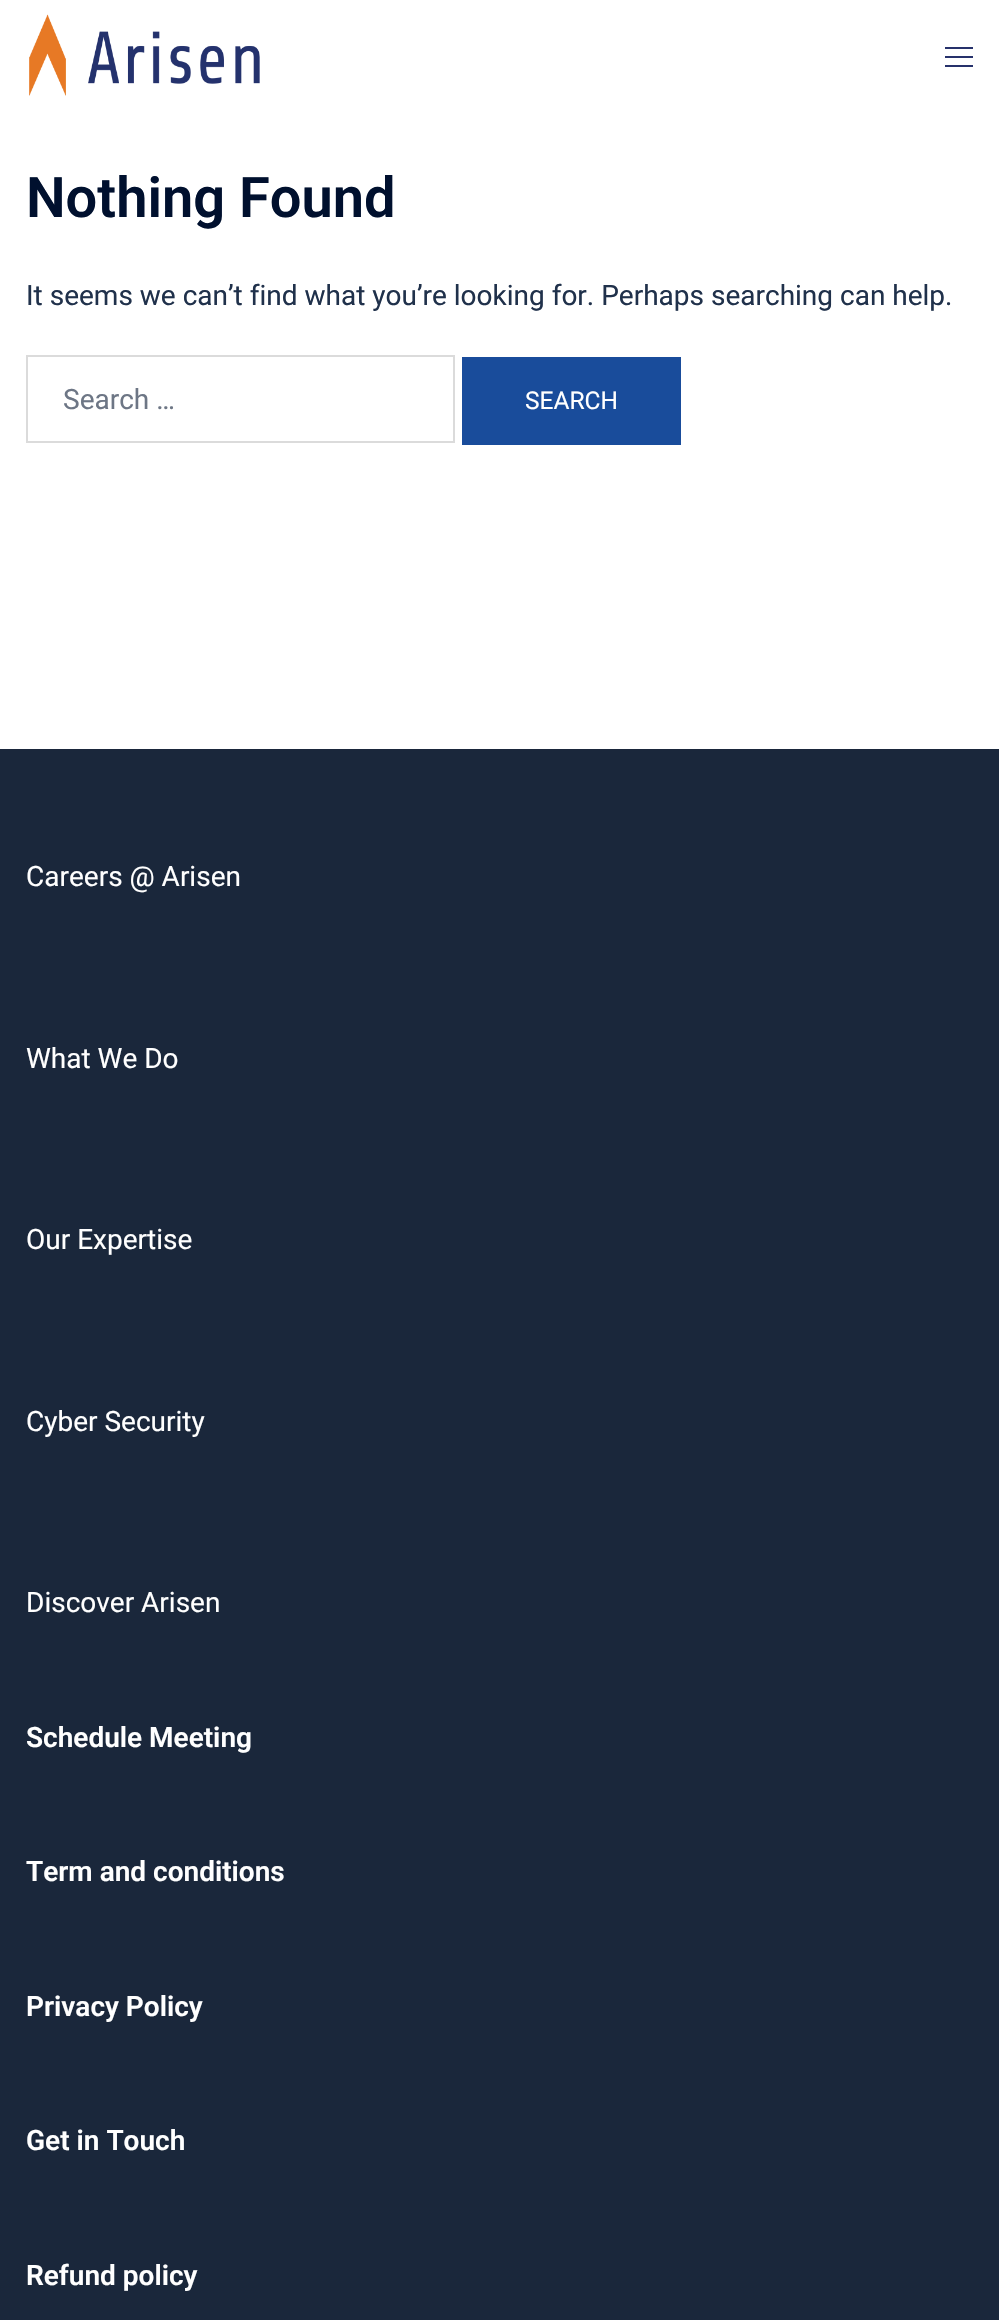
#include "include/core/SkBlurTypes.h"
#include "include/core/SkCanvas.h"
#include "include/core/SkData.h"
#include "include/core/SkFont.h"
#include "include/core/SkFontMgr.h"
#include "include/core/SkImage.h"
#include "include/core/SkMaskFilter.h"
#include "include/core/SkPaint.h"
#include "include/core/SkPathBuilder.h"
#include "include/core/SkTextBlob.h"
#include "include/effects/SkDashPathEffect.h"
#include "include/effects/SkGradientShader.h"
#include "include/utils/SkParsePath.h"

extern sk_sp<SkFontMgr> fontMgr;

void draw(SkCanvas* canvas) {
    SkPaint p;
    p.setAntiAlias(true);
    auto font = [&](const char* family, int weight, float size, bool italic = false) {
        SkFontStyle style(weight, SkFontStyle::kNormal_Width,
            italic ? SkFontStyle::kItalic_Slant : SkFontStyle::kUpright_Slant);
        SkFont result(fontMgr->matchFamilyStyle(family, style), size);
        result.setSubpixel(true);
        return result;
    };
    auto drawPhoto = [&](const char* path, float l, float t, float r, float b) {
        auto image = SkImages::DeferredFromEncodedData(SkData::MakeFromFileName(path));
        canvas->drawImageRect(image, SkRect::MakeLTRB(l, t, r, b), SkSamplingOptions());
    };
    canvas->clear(0xFFFFFFFF);
    drawPhoto("media/1.png", 29, 14, 260, 96);
    {
        const struct { float l, t, r, b; SkColor color; } items[] = {
            {945, 47, 973, 49, 0xFF26316B},
            {945, 56, 973, 58, 0xFF26316B},
            {945, 65, 973, 67, 0xFF26316B},
        };
        for (auto [l, t, r, b, color] : items) {
            p.setColor(color);
            canvas->drawRect(SkRect::MakeLTRB(l, t, r, b), p);
        }
    }
    auto font1 = font("Roboto", 600, 56);
    p.setColor(0xFF00102E);
    canvas->drawString("Nothing Found", 26, 217, font1, p);
    auto font2 = font("Roboto", 400, 28);
    p.setColor(0xFF20314B);
    canvas->drawString("It seems we can’t find what you’re looking for. Perhaps searching can help.", 26, 305, font2, p);
    p.setStyle(SkPaint::kStroke_Style);
    p.setStrokeWidth(2);
    p.setColor(0xFFDBDBDB);
    canvas->drawRect(SkRect::MakeLTRB(27, 356, 454, 442), p);
    p.setStyle(SkPaint::kFill_Style);
    p.setColor(0xFF6D7685);
    canvas->drawString("Search …", 63, 409, font2, p);
    p.setColor(0xFF194C9B);
    canvas->drawRect(SkRect::MakeLTRB(462, 357, 681, 445), p);
    auto font3 = font("Roboto", 400, 24.5f);
    p.setColor(0xFFFFFFFF);
    canvas->drawString("SEARCH", 525, 409, font3, p);
    p.setColor(0xFF1A273B);
    canvas->drawRect(SkRect::MakeLTRB(0, 749, 999, 2320), p);
    p.setColor(0xFFFFFFFF);
    {
        const struct { const char* s; float x, y; } items[] = {
            {"Careers @ Arisen", 26, 886},
            {"What We Do", 26, 1068},
            {"Our Expertise", 26, 1249},
            {"Cyber Security", 26, 1431},
            {"Discover Arisen", 26, 1612},
        };
        for (auto [s, x, y] : items) {
            canvas->drawString(s, x, y, font2, p);
        }
    }
    auto font4 = font("Roboto", 600, 28);
    {
        const struct { const char* s; float x, y; } items[] = {
            {"Schedule Meeting", 26, 1747},
            {"Term and conditions", 26, 1881},
            {"Privacy Policy", 26, 2016},
            {"Get in Touch", 26, 2150},
            {"Refund policy", 26, 2285},
        };
        for (auto [s, x, y] : items) {
            canvas->drawString(s, x, y, font4, p);
        }
    }
}
